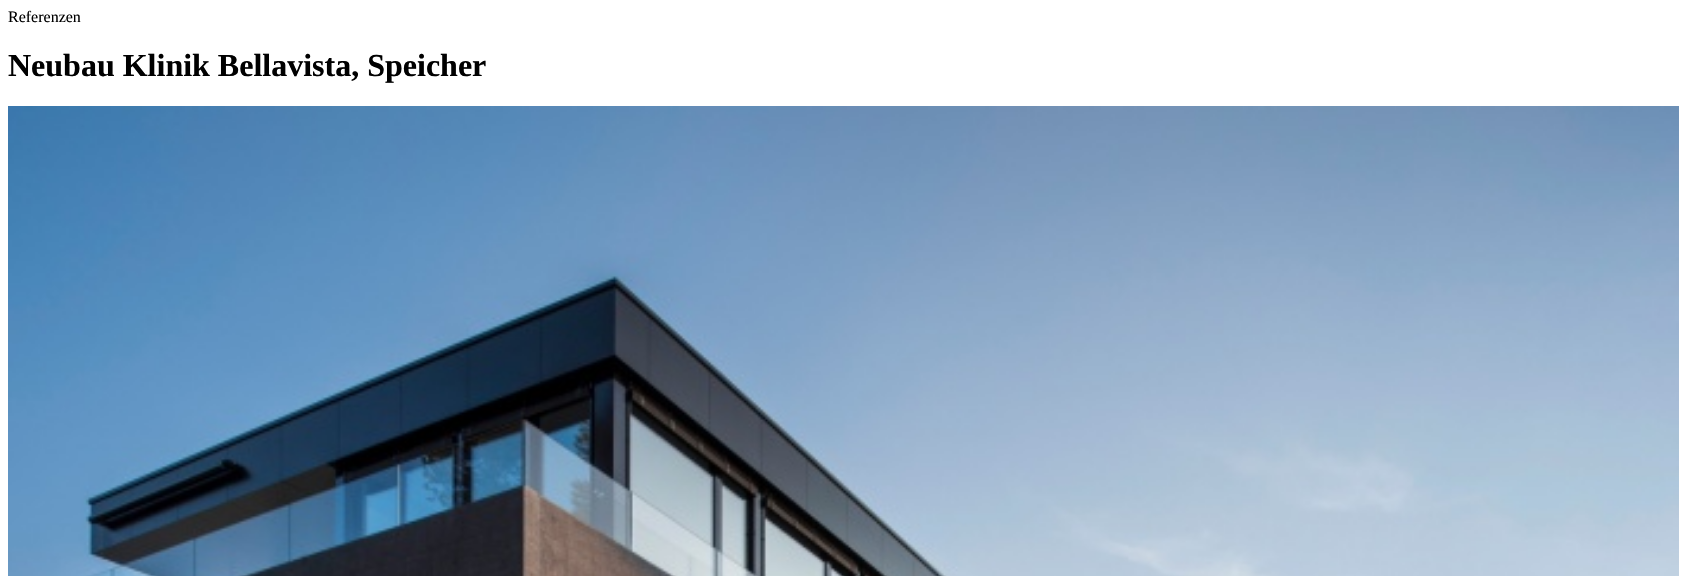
#include "include/core/SkBlurTypes.h"
#include "include/core/SkCanvas.h"
#include "include/core/SkData.h"
#include "include/core/SkFont.h"
#include "include/core/SkFontMgr.h"
#include "include/core/SkImage.h"
#include "include/core/SkMaskFilter.h"
#include "include/core/SkPaint.h"
#include "include/core/SkPathBuilder.h"
#include "include/core/SkTextBlob.h"
#include "include/effects/SkDashPathEffect.h"
#include "include/effects/SkGradientShader.h"
#include "include/utils/SkParsePath.h"

extern sk_sp<SkFontMgr> fontMgr;

void draw(SkCanvas* canvas) {
    SkPaint p;
    p.setAntiAlias(true);
    auto font = [&](const char* family, int weight, float size, bool italic = false) {
        SkFontStyle style(weight, SkFontStyle::kNormal_Width,
            italic ? SkFontStyle::kItalic_Slant : SkFontStyle::kUpright_Slant);
        SkFont result(fontMgr->matchFamilyStyle(family, style), size);
        result.setSubpixel(true);
        return result;
    };
    auto drawPhoto = [&](const char* path, float l, float t, float r, float b) {
        auto image = SkImages::DeferredFromEncodedData(SkData::MakeFromFileName(path));
        canvas->drawImageRect(image, SkRect::MakeLTRB(l, t, r, b), SkSamplingOptions());
    };
    canvas->clear(0xFFFFFFFF);
    auto font1 = font("Liberation Serif", 400, 16);
    p.setColor(0xFF000000);
    canvas->drawString("Referenzen", 8, 22, font1, p);
    auto font2 = font("Liberation Serif", 700, 32);
    canvas->drawString("Neubau Klinik Bellavista, Speicher", 8, 76, font2, p);
    drawPhoto("media/1.png", 8, 106, 1679, 576);
}
